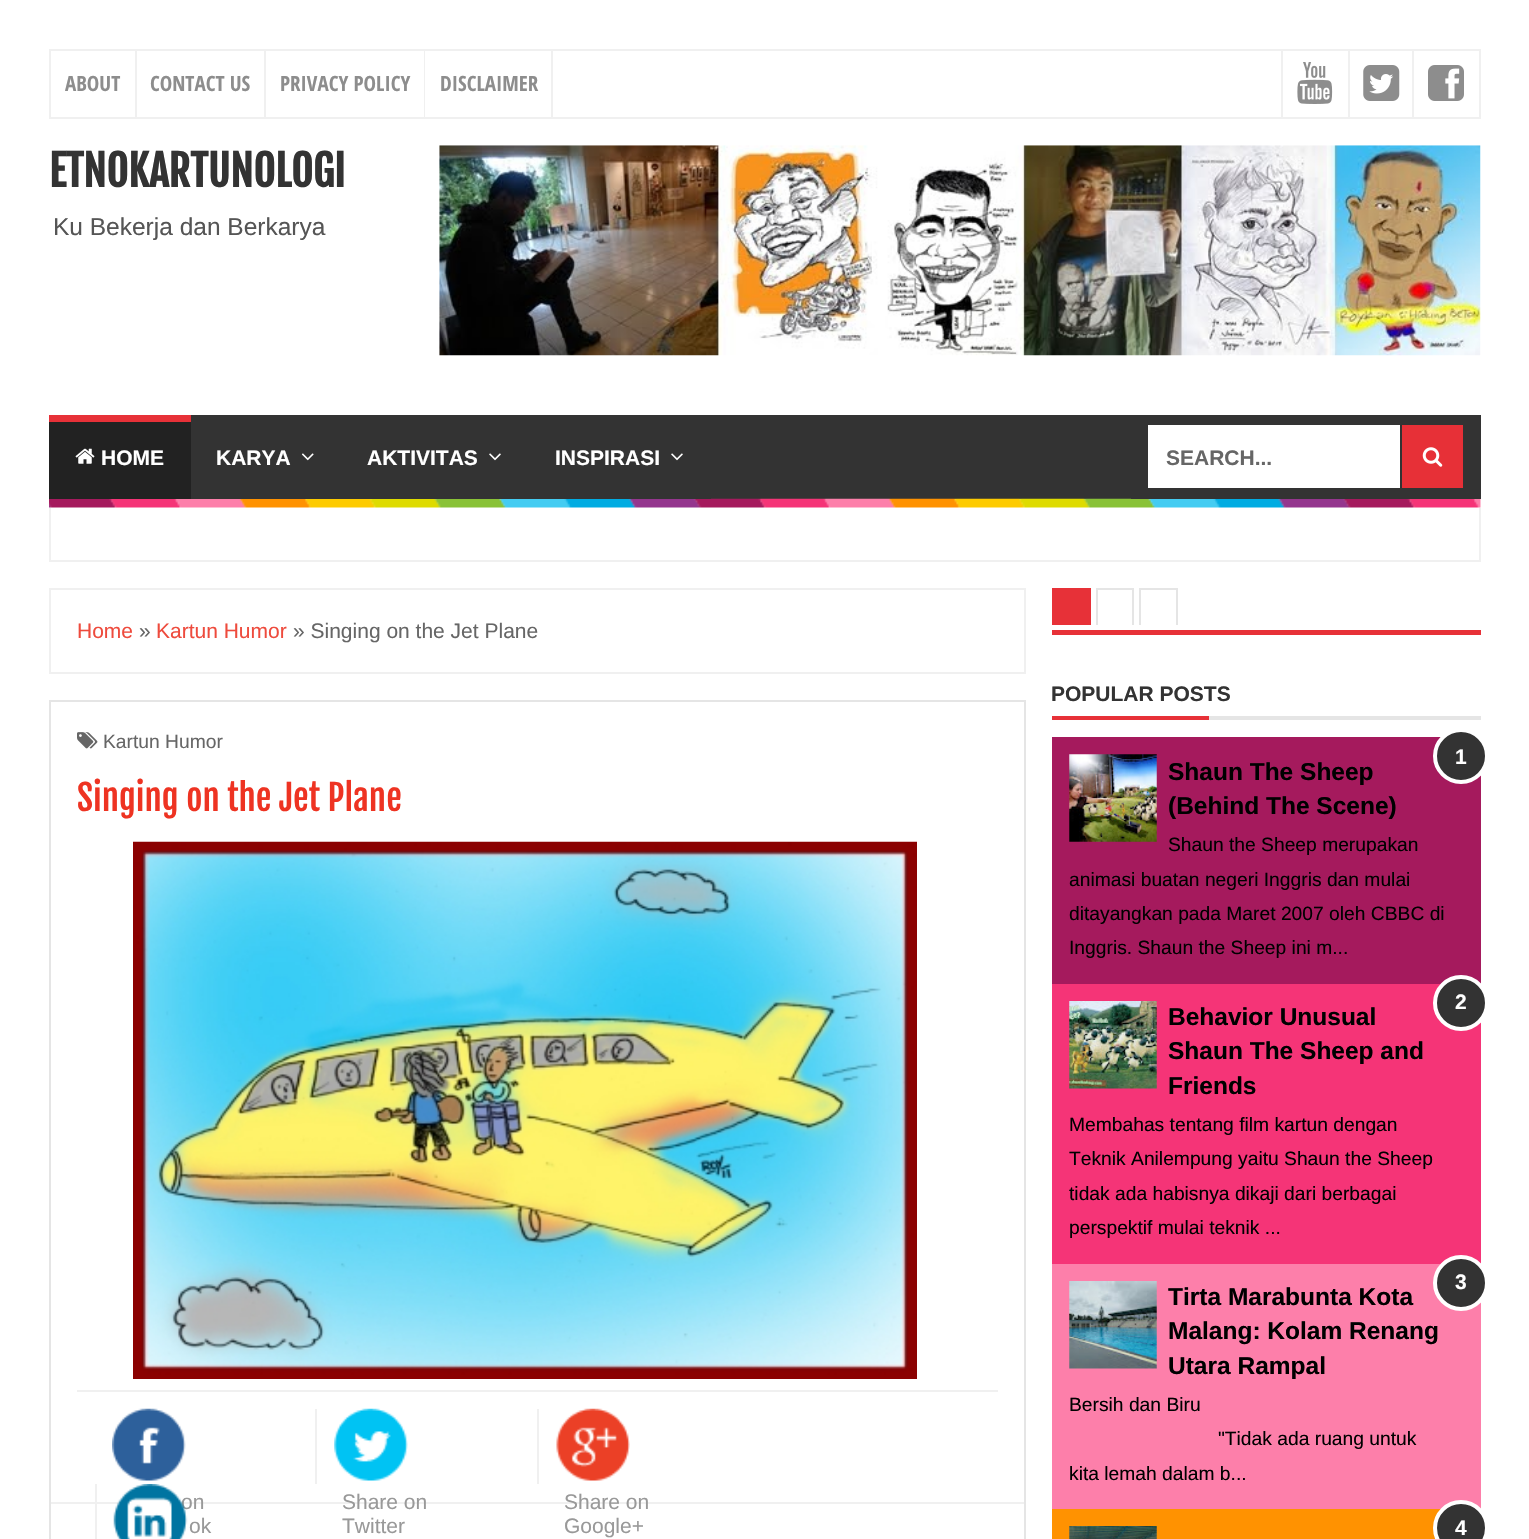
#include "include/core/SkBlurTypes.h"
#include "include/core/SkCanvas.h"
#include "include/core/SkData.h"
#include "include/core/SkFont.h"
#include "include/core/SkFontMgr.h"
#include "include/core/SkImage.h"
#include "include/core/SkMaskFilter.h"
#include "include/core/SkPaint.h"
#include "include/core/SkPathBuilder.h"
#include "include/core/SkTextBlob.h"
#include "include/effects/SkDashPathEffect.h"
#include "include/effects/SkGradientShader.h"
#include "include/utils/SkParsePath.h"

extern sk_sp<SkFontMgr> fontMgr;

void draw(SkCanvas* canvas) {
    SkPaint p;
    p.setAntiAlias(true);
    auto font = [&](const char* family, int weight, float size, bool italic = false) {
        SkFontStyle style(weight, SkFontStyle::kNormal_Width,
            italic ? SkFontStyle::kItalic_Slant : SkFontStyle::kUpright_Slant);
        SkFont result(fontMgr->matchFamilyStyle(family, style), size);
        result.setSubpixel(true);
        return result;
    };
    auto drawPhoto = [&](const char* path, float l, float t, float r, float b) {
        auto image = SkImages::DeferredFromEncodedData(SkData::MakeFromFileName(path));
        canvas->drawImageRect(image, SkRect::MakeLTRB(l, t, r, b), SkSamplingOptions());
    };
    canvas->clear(0xFFFFFFFF);
    p.setStyle(SkPaint::kStroke_Style);
    p.setStrokeWidth(2);
    p.setColor(0xFFF0F0F0);
    canvas->drawRect(SkRect::MakeLTRB(50, 50, 1480, 118), p);
    p.setStyle(SkPaint::kFill_Style);
    canvas->drawRect(SkRect::MakeLTRB(135, 51, 137, 117), p);
    auto font1 = font("Open Sans Condensed", 700, 21);
    p.setColor(0xFF8D8D8D);
    canvas->drawString("ABOUT", 65, 91, font1, p);
    p.setColor(0xFFF0F0F0);
    canvas->drawRect(SkRect::MakeLTRB(264, 51, 266, 117), p);
    p.setColor(0xFF8D8D8D);
    canvas->drawString("CONTACT US", 150, 91, font1, p);
    p.setColor(0xFFF0F0F0);
    canvas->drawRect(SkRect::MakeLTRB(424, 51, 425, 117), p);
    p.setColor(0xFF8D8D8D);
    canvas->drawString("PRIVACY POLICY", 280, 91, font1, p);
    p.setColor(0xFFF0F0F0);
    canvas->drawRect(SkRect::MakeLTRB(551, 51, 553, 117), p);
    p.setColor(0xFF8D8D8D);
    canvas->drawString("DISCLAIMER", 440, 91, font1, p);
    p.setColor(0xFFF0F0F0);
    canvas->drawRect(SkRect::MakeLTRB(1281, 51, 1283, 117), p);
    drawPhoto("media/1.png", 1297, 62, 1333, 104);
    canvas->drawRect(SkRect::MakeLTRB(1348, 51, 1350, 117), p);
    drawPhoto("media/2.png", 1363, 65, 1400, 101);
    canvas->drawRect(SkRect::MakeLTRB(1412, 51, 1414, 117), p);
    drawPhoto("media/3.png", 1428, 65, 1464, 101);
    auto font2 = font("Fjalla One", 700, 42);
    p.setColor(0xFF333333);
    canvas->drawString("ETNOKARTUNOLOGI", 49, 187, font2, p);
    auto font3 = font("Liberation Sans", 400, 24.5f);
    p.setColor(0xFF555555);
    canvas->drawString("Ku Bekerja dan Berkarya", 53, 235, font3, p);
    drawPhoto("media/4.png", 439, 145, 1481, 356);
    p.setColor(0xFF333333);
    canvas->drawRect(SkRect::MakeLTRB(711, 415, 1131, 499), p);
    drawPhoto("media/9.png", 49, 498, 1481, 508);
    {
        const struct { float l, t, r, b; SkColor color; } items[] = {
            {191, 415, 711, 499, 0xFF333333},
            {49, 422, 191, 499, 0xFF222222},
            {49, 415, 191, 422, 0xFFE73138},
        };
        for (auto [l, t, r, b, color] : items) {
            p.setColor(color);
            canvas->drawRect(SkRect::MakeLTRB(l, t, r, b), p);
        }
    }
    drawPhoto("media/5.png", 75, 448, 95, 464);
    auto font4 = font("Liberation Sans", 700, 21);
    p.setColor(0xFFFFFFFF);
    canvas->drawString("HOME", 101, 465, font4, p);
    canvas->drawString("KARYA", 216, 465, font4, p);
    drawPhoto("media/6.png", 301, 453, 314, 461);
    canvas->drawString("AKTIVITAS", 367, 465, font4, p);
    drawPhoto("media/7.png", 489, 453, 501, 461);
    canvas->drawString("INSPIRASI", 555, 465, font4, p);
    drawPhoto("media/7.png", 671, 453, 683, 461);
    p.setColor(0xFF333333);
    canvas->drawRect(SkRect::MakeLTRB(1131, 415, 1481, 499), p);
    p.setColor(0xFFFFFFFF);
    canvas->drawRect(SkRect::MakeLTRB(1148, 425, 1400, 488), p);
    p.setColor(0xFF666666);
    canvas->drawString("SEARCH...", 1166, 465, font4, p);
    p.setColor(0xFFE73037);
    canvas->drawRect(SkRect::MakeLTRB(1402, 425, 1463, 488), p);
    drawPhoto("media/8.png", 1422, 447, 1443, 467);
    {
        const struct { float l, t, r, b; SkColor color; } items[] = {
            {1479, 508, 1481, 562, 0xFFF0F0F0},
            {49, 560, 1481, 562, 0xFFF0F0F0},
            {49, 508, 51, 562, 0xFFF0F0F0},
        };
        for (auto [l, t, r, b, color] : items) {
            p.setColor(color);
            canvas->drawRect(SkRect::MakeLTRB(l, t, r, b), p);
        }
    }
    p.setStyle(SkPaint::kStroke_Style);
    canvas->drawRect(SkRect::MakeLTRB(50, 589, 1025, 673), p);
    auto font5 = font("Liberation Sans", 400, 21);
    p.setStyle(SkPaint::kFill_Style);
    p.setColor(0xFFEE4B3D);
    canvas->drawString("Home", 77, 638, font5, p);
    p.setColor(0xFF666666);
    canvas->drawString("»", 139, 638, font5, p);
    p.setColor(0xFFEE4B3D);
    canvas->drawString("Kartun Humor", 156, 638, font5, p);
    p.setColor(0xFF666666);
    canvas->drawString("» Singing on the Jet Plane", 293, 638, font5, p);
    p.setStyle(SkPaint::kStroke_Style);
    p.setColor(0xFFE5E5E5);
    canvas->drawRect(SkRect::MakeLTRB(50, 701, 1025, 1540), p);
    drawPhoto("media/10.png", 77, 732, 98, 749);
    auto font6 = font("Liberation Sans", 400, 19.25f);
    p.setStyle(SkPaint::kFill_Style);
    p.setColor(0xFF666666);
    canvas->drawString("Kartun Humor", 103, 748, font6, p);
    auto font7 = font("Fjalla One", 400, 35);
    p.setColor(0xFFEE3322);
    canvas->drawString("Singing on the Jet Plane", 77, 811, font7, p);
    drawPhoto("media/11.png", 133, 841, 917, 1379);
    {
        const struct { float l, t, r, b; SkColor color; } items[] = {
            {77, 1390, 998, 1392, 0xFFF0F0F0},
            {51, 1502, 1024, 1504, 0xFFF0F0F0},
            {95, 1484, 97, 1539, 0xFFF0F0F0},
        };
        for (auto [l, t, r, b, color] : items) {
            p.setColor(color);
            canvas->drawRect(SkRect::MakeLTRB(l, t, r, b), p);
        }
    }
    p.setColor(0xFF999999);
    canvas->drawString("on", 181, 1509, font5, p);
    drawPhoto("media/12.png", 113, 1484, 188, 1539);
    drawPhoto("media/13.png", 112, 1408, 186, 1481);
    canvas->drawString("ok", 189, 1533, font5, p);
    p.setColor(0xFFF0F0F0);
    canvas->drawRect(SkRect::MakeLTRB(315, 1409, 317, 1484), p);
    drawPhoto("media/14.png", 334, 1408, 408, 1481);
    p.setColor(0xFF999999);
    canvas->drawString("Share on", 342, 1509, font5, p);
    canvas->drawString("Twitter", 342, 1533, font5, p);
    p.setColor(0xFFF0F0F0);
    canvas->drawRect(SkRect::MakeLTRB(537, 1409, 539, 1484), p);
    drawPhoto("media/15.png", 556, 1408, 630, 1481);
    p.setColor(0xFF999999);
    canvas->drawString("Share on", 564, 1509, font5, p);
    canvas->drawString("Google+", 564, 1533, font5, p);
    {
        const struct { float l, t, r, b; SkColor color; } items[] = {
            {1052, 630, 1481, 635, 0xFFE73138},
            {1052, 588, 1091, 625, 0xFFE73138},
            {1096, 588, 1134, 590, 0xFFE5E5E5},
            {1132, 588, 1134, 625, 0xFFE5E5E5},
            {1096, 588, 1098, 625, 0xFFE5E5E5},
            {1139, 588, 1178, 590, 0xFFE5E5E5},
            {1176, 588, 1178, 625, 0xFFE5E5E5},
            {1139, 588, 1141, 625, 0xFFE5E5E5},
            {1209, 716, 1481, 720, 0xFFE5E5E5},
        };
        for (auto [l, t, r, b, color] : items) {
            p.setColor(color);
            canvas->drawRect(SkRect::MakeLTRB(l, t, r, b), p);
        }
    }
    p.setColor(0xFF333333);
    canvas->drawString("POPULAR POSTS", 1051, 701, font4, p);
    p.setColor(0xFFE73138);
    canvas->drawRect(SkRect::MakeLTRB(1052, 716, 1209, 720), p);
    p.setColor(0xFFA51A5D);
    canvas->drawRect(SkRect::MakeLTRB(1052, 737, 1481, 984), p);
    p.setColor(0xFF333333);
    canvas->drawCircle(1461, 756, 26, p);
    p.setStyle(SkPaint::kStroke_Style);
    p.setStrokeWidth(4);
    p.setColor(0xFFFFFFFF);
    canvas->drawCircle(1461, 756, 26, p);
    p.setStyle(SkPaint::kFill_Style);
    canvas->drawString("1", 1455, 764, font4, p);
    drawPhoto("media/16.png", 1069, 754, 1157, 842);
    auto font8 = font("Liberation Sans", 700, 24.5f);
    p.setColor(0xFF000000);
    canvas->drawString("Shaun The Sheep", 1168, 780, font8, p);
    canvas->drawString("(Behind The Scene)", 1168, 814, font8, p);
    {
        const struct { const char* s; float x, y; } items[] = {
            {"Shaun the Sheep merupakan", 1168, 851},
            {"animasi buatan negeri Inggris dan mulai", 1069, 886},
            {"ditayangkan pada Maret 2007 oleh CBBC di", 1069, 920},
            {"Inggris. Shaun the Sheep ini m...", 1069, 954},
        };
        for (auto [s, x, y] : items) {
            canvas->drawString(s, x, y, font6, p);
        }
    }
    p.setColor(0xFFF53477);
    canvas->drawRect(SkRect::MakeLTRB(1052, 984, 1481, 1264), p);
    p.setColor(0xFF333333);
    canvas->drawCircle(1461, 1003, 26, p);
    p.setStyle(SkPaint::kStroke_Style);
    p.setColor(0xFFFFFFFF);
    canvas->drawCircle(1461, 1003, 26, p);
    p.setStyle(SkPaint::kFill_Style);
    canvas->drawString("2", 1455, 1009, font4, p);
    drawPhoto("media/17.png", 1069, 1001, 1157, 1089);
    p.setColor(0xFF000000);
    {
        const struct { const char* s; float x, y; } items[] = {
            {"Behavior Unusual", 1168, 1025},
            {"Shaun The Sheep and", 1168, 1059},
            {"Friends", 1168, 1094},
        };
        for (auto [s, x, y] : items) {
            canvas->drawString(s, x, y, font8, p);
        }
    }
    {
        const struct { const char* s; float x, y; } items[] = {
            {"Membahas tentang film kartun dengan", 1069, 1131},
            {"Teknik Anilempung yaitu Shaun the Sheep", 1069, 1165},
            {"tidak ada habisnya dikaji dari berbagai", 1069, 1200},
            {"perspektif mulai teknik ...", 1069, 1234},
        };
        for (auto [s, x, y] : items) {
            canvas->drawString(s, x, y, font6, p);
        }
    }
    p.setColor(0xFFFD7FAA);
    canvas->drawRect(SkRect::MakeLTRB(1052, 1264, 1481, 1509), p);
    p.setColor(0xFF333333);
    canvas->drawCircle(1461, 1283, 26, p);
    p.setStyle(SkPaint::kStroke_Style);
    p.setColor(0xFFFFFFFF);
    canvas->drawCircle(1461, 1283, 26, p);
    p.setStyle(SkPaint::kFill_Style);
    canvas->drawString("3", 1455, 1289, font4, p);
    drawPhoto("media/18.png", 1069, 1281, 1157, 1369);
    p.setColor(0xFF000000);
    {
        const struct { const char* s; float x, y; } items[] = {
            {"Tirta Marabunta Kota", 1168, 1305},
            {"Malang: Kolam Renang", 1168, 1339},
            {"Utara Rampal", 1168, 1374},
        };
        for (auto [s, x, y] : items) {
            canvas->drawString(s, x, y, font8, p);
        }
    }
    {
        const struct { const char* s; float x, y; } items[] = {
            {"Bersih dan Biru", 1069, 1411},
            {"\"Tidak ada ruang untuk", 1218, 1445},
            {"kita lemah dalam b...", 1069, 1480},
        };
        for (auto [s, x, y] : items) {
            canvas->drawString(s, x, y, font6, p);
        }
    }
    p.setColor(0xFFFF9201);
    canvas->drawRect(SkRect::MakeLTRB(1052, 1509, 1441, 1539), p);
    drawPhoto("media/19.png", 1069, 1526, 1157, 1539);
    p.setColor(0xFF333333);
    canvas->drawCircle(1461, 1528, 26, p);
    p.setStyle(SkPaint::kStroke_Style);
    p.setColor(0xFFFFFFFF);
    canvas->drawCircle(1461, 1528, 26, p);
    p.setStyle(SkPaint::kFill_Style);
    canvas->drawString("4", 1455, 1535, font4, p);
}
